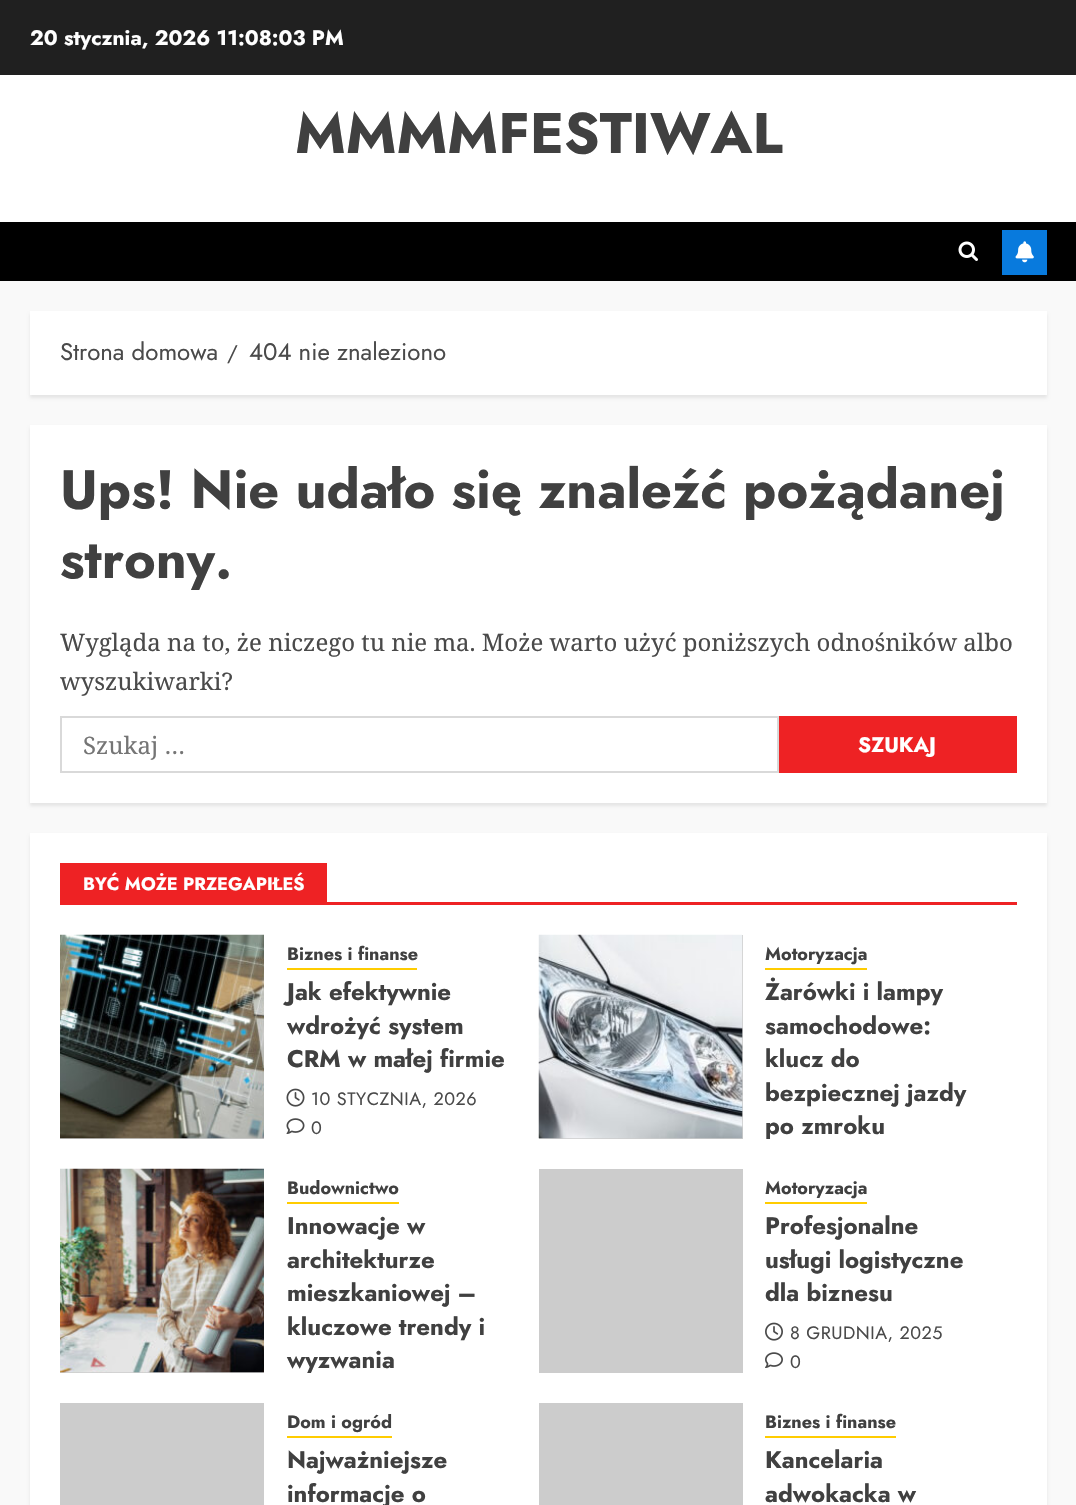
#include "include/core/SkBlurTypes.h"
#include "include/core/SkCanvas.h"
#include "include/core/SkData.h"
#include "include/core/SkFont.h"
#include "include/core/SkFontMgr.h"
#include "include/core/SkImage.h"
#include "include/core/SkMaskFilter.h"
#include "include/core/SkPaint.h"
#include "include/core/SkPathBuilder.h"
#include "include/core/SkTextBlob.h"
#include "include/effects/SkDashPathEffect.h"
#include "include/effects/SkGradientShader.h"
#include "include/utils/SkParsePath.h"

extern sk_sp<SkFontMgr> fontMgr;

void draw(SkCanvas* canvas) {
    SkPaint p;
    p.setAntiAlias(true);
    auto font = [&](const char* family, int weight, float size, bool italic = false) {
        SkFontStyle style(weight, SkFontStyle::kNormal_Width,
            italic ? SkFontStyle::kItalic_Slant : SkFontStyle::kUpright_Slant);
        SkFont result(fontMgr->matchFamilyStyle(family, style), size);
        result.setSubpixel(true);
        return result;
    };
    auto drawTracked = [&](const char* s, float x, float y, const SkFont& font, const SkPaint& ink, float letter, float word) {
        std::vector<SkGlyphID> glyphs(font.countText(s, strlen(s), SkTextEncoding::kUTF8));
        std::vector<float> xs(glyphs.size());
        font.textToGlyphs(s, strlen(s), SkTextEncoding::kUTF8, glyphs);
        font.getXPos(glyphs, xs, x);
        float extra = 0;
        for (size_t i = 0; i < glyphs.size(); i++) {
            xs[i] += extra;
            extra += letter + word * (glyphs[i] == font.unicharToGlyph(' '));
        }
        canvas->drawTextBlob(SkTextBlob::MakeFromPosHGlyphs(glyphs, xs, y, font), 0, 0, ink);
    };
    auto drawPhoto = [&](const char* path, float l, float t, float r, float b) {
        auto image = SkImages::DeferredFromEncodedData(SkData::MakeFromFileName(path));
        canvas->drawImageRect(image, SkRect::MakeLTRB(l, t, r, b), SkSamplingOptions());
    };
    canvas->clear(0xFFF9F9F9);
    p.setColor(0xFF202020);
    canvas->drawRect(SkRect::MakeLTRB(0, 0, 1076, 75), p);
    auto font1 = font("Jost", 700, 21);
    p.setColor(0xFFFFFFFF);
    canvas->drawString("20 stycznia, 2026 11:08:03 PM", 30, 45, font1, p);
    canvas->drawRect(SkRect::MakeLTRB(0, 75, 1076, 222), p);
    auto font2 = font("Jost", 700, 57);
    p.setColor(0xFF404040);
    canvas->drawString("MMMMFESTIWAL", 295, 153, font2, p);
    p.setColor(0xFF000000);
    canvas->drawRect(SkRect::MakeLTRB(0, 222, 1076, 281), p);
    drawPhoto("media/1.png", 958, 241, 978, 261);
    p.setColor(0xFF087ADD);
    canvas->drawRect(SkRect::MakeLTRB(1002, 230, 1047, 275), p);
    drawPhoto("media/2.png", 1015, 241, 1034, 263);
    p.setColor(0x14000000);
    p.setMaskFilter(SkMaskFilter::MakeBlur(kNormal_SkBlurStyle, 1.5f));
    canvas->drawRect(SkRect::MakeLTRB(30, 314, 1047, 398), p);
    p.setMaskFilter(nullptr);
    p.setColor(0xFFFFFFFF);
    canvas->drawRect(SkRect::MakeLTRB(30, 311, 1047, 395), p);
    auto font3 = font("Jost", 400, 24);
    p.setColor(0xFF4A4A4A);
    canvas->drawString("Strona domowa", 60, 360, font3, p);
    auto font4 = font("Jost", 400, 21);
    canvas->drawString("/", 227, 360, font4, p);
    canvas->drawString("404 nie znaleziono", 249, 360, font3, p);
    p.setColor(0x14000000);
    p.setMaskFilter(SkMaskFilter::MakeBlur(kNormal_SkBlurStyle, 1.5f));
    canvas->drawRect(SkRect::MakeLTRB(30, 428, 1047, 806), p);
    p.setMaskFilter(nullptr);
    p.setColor(0xFFFFFFFF);
    canvas->drawRect(SkRect::MakeLTRB(30, 425, 1047, 803), p);
    auto font5 = font("Jost", 700, 54);
    p.setColor(0xFF404040);
    canvas->drawString("Ups! Nie udało się znaleźć pożądanej", 60, 508, font5, p);
    canvas->drawString("strony.", 60, 578, font5, p);
    auto font6 = font("Noto Serif", 400, 24);
    p.setColor(0xFF4A4A4A);
    canvas->drawString("Wygląda na to, że niczego tu nie ma. Może warto użyć poniższych odnośników albo", 60, 651, font6, p);
    canvas->drawString("wyszukiwarki?", 60, 690, font6, p);
    p.setStyle(SkPaint::kStroke_Style);
    p.setStrokeWidth(2);
    p.setColor(0xFFD9D9D9);
    canvas->drawRect(SkRect::MakeLTRB(61, 717, 778, 772), p);
    p.setStyle(SkPaint::kFill_Style);
    p.setColor(0xFF757575);
    canvas->drawString("Szukaj …", 83, 754, font6, p);
    p.setColor(0xFFEE2224);
    canvas->drawRect(SkRect::MakeLTRB(779, 716, 1017, 773), p);
    p.setColor(0xFFFFFFFF);
    canvas->drawString("SZUKAJ", 858, 752, font1, p);
    p.setColor(0x14000000);
    p.setMaskFilter(SkMaskFilter::MakeBlur(kNormal_SkBlurStyle, 1.5f));
    canvas->drawRect(SkRect::MakeLTRB(30, 836, 1047, 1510), p);
    p.setMaskFilter(nullptr);
    p.setColor(0xFFFFFFFF);
    canvas->drawRect(SkRect::MakeLTRB(30, 833, 1047, 1505), p);
    p.setColor(0xFFEE2224);
    canvas->drawRect(SkRect::MakeLTRB(60, 863, 327, 902), p);
    auto font7 = font("Jost", 700, 18);
    p.setColor(0xFFFFFFFF);
    canvas->drawString("BYĆ MOŻE PRZEGAPIŁEŚ", 83, 890, font7, p);
    p.setColor(0xFFEE2224);
    canvas->drawRect(SkRect::MakeLTRB(60, 902, 1017, 905), p);
    p.setColor(0xFFCCCCCC);
    canvas->drawRect(SkRect::MakeLTRB(60, 1138, 264, 1139), p);
    drawPhoto("media/3.png", 60, 934, 264, 1139);
    p.setColor(0xFFFFCC00);
    canvas->drawRect(SkRect::MakeLTRB(287, 968, 417, 970), p);
    p.setColor(0xFF404040);
    canvas->drawString("Biznes i finanse", 287, 960, font7, p);
    auto font8 = font("Jost", 700, 24);
    {
        const struct { const char* s; float x, y; } items[] = {
            {"Jak efektywnie", 287, 1000},
            {"wdrożyć system", 287, 1034},
            {"CRM w małej firmie", 287, 1067},
        };
        for (auto [s, x, y] : items) {
            canvas->drawString(s, x, y, font8, p);
        }
    }
    drawPhoto("media/4.png", 286, 1088, 305, 1107);
    auto font9 = font("Jost", 400, 18);
    p.setColor(0xFF4A4A4A);
    drawTracked("10 STYCZNIA, 2026", 311, 1105, font9, p, 0.5f, 0);
    drawPhoto("media/5.png", 286, 1118, 305, 1134);
    drawTracked("0", 311, 1134, font9, p, 0.5f, 0);
    p.setColor(0xFFCCCCCC);
    canvas->drawRect(SkRect::MakeLTRB(539, 935, 743, 1139), p);
    drawPhoto("media/6.png", 538, 934, 743, 1139);
    p.setColor(0xFFFFCC00);
    canvas->drawRect(SkRect::MakeLTRB(765, 968, 867, 970), p);
    p.setColor(0xFF404040);
    canvas->drawString("Motoryzacja", 765, 960, font7, p);
    {
        const struct { const char* s; float x, y; } items[] = {
            {"Żarówki i lampy", 765, 1000},
            {"samochodowe:", 765, 1034},
            {"klucz do", 765, 1067},
            {"bezpiecznej jazdy", 765, 1101},
        };
        for (auto [s, x, y] : items) {
            canvas->drawString(s, x, y, font8, p);
        }
    }
    canvas->save();
    canvas->clipRect(SkRect::MakeLTRB(743, 935, 987, 1139));
    canvas->drawString("po zmroku", 765, 1134, font8, p);
    canvas->restore();
    p.setColor(0xFFCCCCCC);
    canvas->drawRect(SkRect::MakeLTRB(60, 1372, 264, 1373), p);
    drawPhoto("media/7.png", 60, 1168, 264, 1373);
    p.setColor(0xFFFFCC00);
    canvas->drawRect(SkRect::MakeLTRB(287, 1202, 399, 1204), p);
    p.setColor(0xFF404040);
    canvas->drawString("Budownictwo", 287, 1194, font7, p);
    {
        const struct { const char* s; float x, y; } items[] = {
            {"Innowacje w", 287, 1234},
            {"architekturze", 287, 1268},
            {"mieszkaniowej –", 287, 1301},
            {"kluczowe trendy i", 287, 1335},
        };
        for (auto [s, x, y] : items) {
            canvas->drawString(s, x, y, font8, p);
        }
    }
    canvas->save();
    canvas->clipRect(SkRect::MakeLTRB(264, 1169, 509, 1373));
    canvas->drawString("wyzwania", 287, 1368, font8, p);
    canvas->restore();
    p.setColor(0xFFCCCCCC);
    canvas->drawRect(SkRect::MakeLTRB(539, 1169, 743, 1373), p);
    p.setColor(0xFFFFCC00);
    canvas->drawRect(SkRect::MakeLTRB(765, 1202, 867, 1204), p);
    p.setColor(0xFF404040);
    canvas->drawString("Motoryzacja", 765, 1194, font7, p);
    {
        const struct { const char* s; float x, y; } items[] = {
            {"Profesjonalne", 765, 1234},
            {"usługi logistyczne", 765, 1268},
            {"dla biznesu", 765, 1301},
        };
        for (auto [s, x, y] : items) {
            canvas->drawString(s, x, y, font8, p);
        }
    }
    drawPhoto("media/8.png", 765, 1322, 783, 1341);
    p.setColor(0xFF4A4A4A);
    drawTracked("8 GRUDNIA, 2025", 790, 1339, font9, p, 0.5f, 0);
    drawPhoto("media/9.png", 765, 1352, 783, 1368);
    drawTracked("0", 790, 1368, font9, p, 0.5f, 0);
    p.setColor(0xFFCCCCCC);
    canvas->drawRect(SkRect::MakeLTRB(60, 1403, 264, 1505), p);
    p.setColor(0xFFFFCC00);
    canvas->drawRect(SkRect::MakeLTRB(287, 1436, 392, 1438), p);
    p.setColor(0xFF404040);
    canvas->drawString("Dom i ogród", 287, 1428, font7, p);
    canvas->drawString("Najważniejsze", 287, 1468, font8, p);
    canvas->drawString("informacje o", 287, 1502, font8, p);
    p.setColor(0xFFCCCCCC);
    canvas->drawRect(SkRect::MakeLTRB(539, 1403, 743, 1505), p);
    p.setColor(0xFFFFCC00);
    canvas->drawRect(SkRect::MakeLTRB(765, 1436, 896, 1438), p);
    p.setColor(0xFF404040);
    canvas->drawString("Biznes i finanse", 765, 1428, font7, p);
    canvas->drawString("Kancelaria", 765, 1468, font8, p);
    canvas->drawString("adwokacka w", 765, 1502, font8, p);
}
